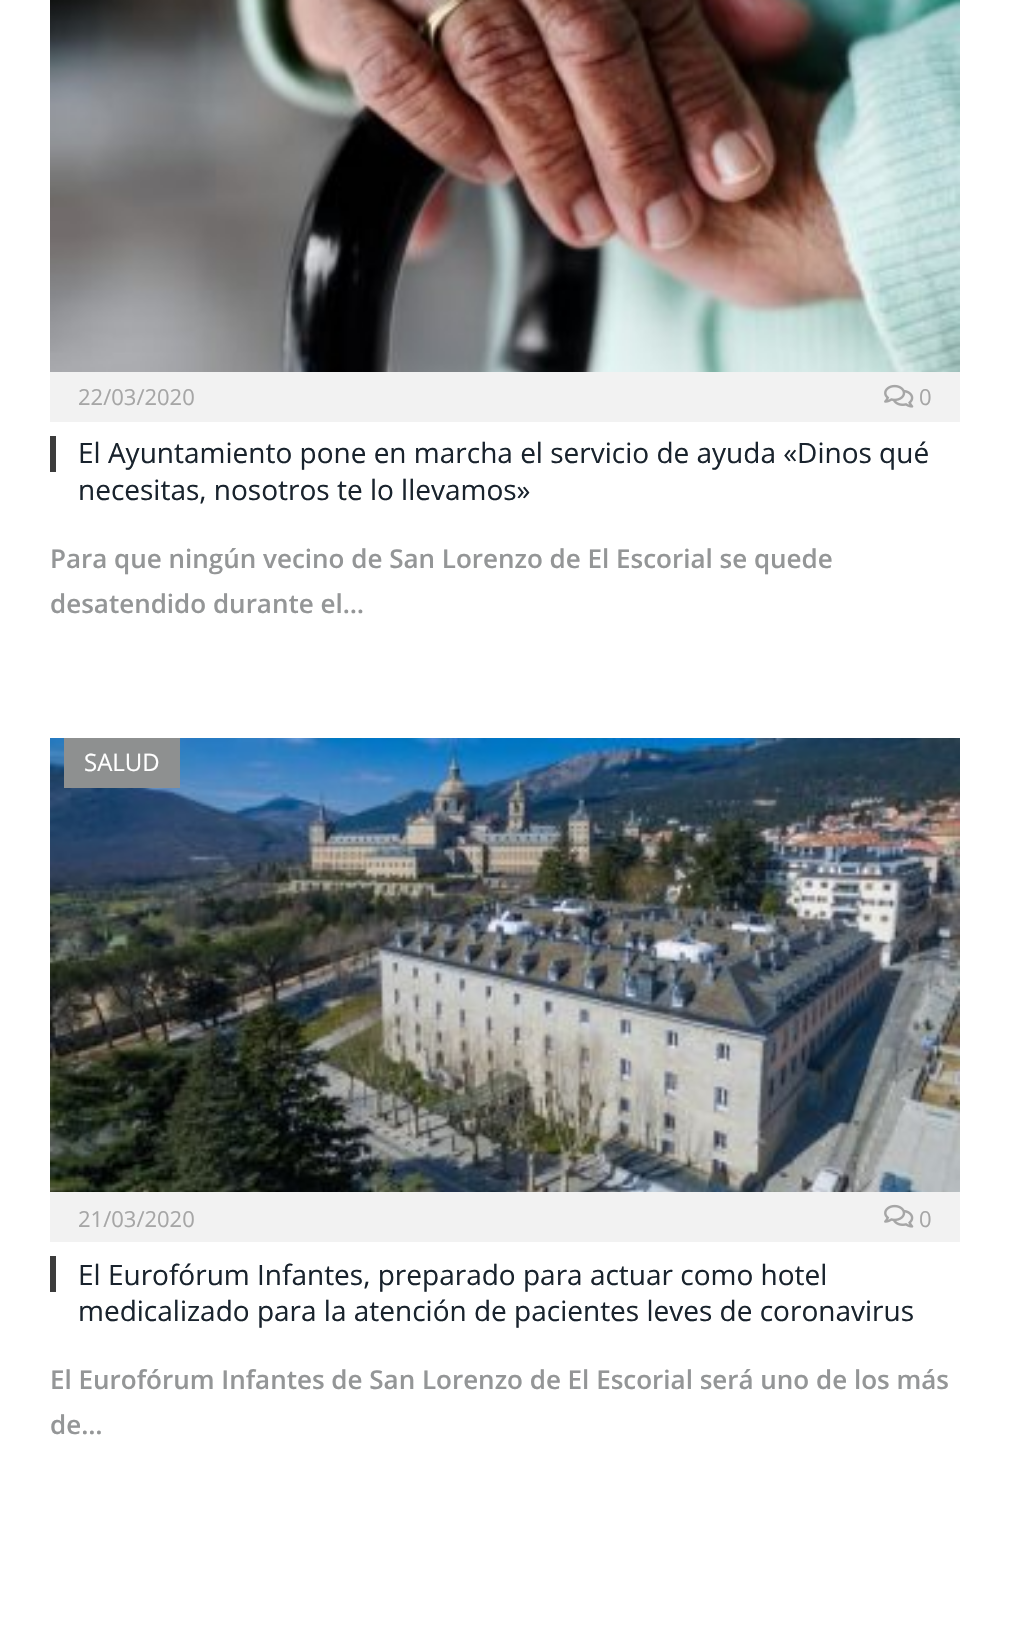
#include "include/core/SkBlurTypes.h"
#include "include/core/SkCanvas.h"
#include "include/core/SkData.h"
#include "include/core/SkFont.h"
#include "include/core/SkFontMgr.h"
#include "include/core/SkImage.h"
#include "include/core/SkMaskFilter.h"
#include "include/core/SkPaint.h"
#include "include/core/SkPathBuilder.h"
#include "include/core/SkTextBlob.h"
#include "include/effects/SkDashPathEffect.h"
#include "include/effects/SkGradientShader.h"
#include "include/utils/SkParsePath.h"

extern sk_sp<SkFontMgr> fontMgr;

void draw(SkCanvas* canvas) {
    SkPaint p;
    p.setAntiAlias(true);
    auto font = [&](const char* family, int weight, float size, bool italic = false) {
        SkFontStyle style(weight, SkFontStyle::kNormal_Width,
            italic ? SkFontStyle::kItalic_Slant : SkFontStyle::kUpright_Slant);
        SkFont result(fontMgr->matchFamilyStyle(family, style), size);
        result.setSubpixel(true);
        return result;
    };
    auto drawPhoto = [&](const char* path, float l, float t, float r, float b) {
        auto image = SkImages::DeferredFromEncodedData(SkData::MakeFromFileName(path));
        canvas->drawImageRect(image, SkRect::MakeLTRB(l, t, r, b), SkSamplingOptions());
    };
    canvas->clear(0xFFFFFFFF);
    drawPhoto("media/1.png", 50, 0, 960, 372);
    p.setColor(0xFFF2F2F2);
    canvas->drawRect(SkRect::MakeLTRB(50, 372, 960, 422), p);
    auto font1 = font("Open Sans", 400, 22);
    p.setColor(0xFFA6A6A6);
    canvas->drawString("22/03/2020", 78, 405, font1, p);
    drawPhoto("media/2.png", 884, 384, 914, 408);
    canvas->drawString("0", 919, 405, font1, p);
    p.setColor(0xFF3C3C3C);
    canvas->drawRect(SkRect::MakeLTRB(50, 436, 56, 472), p);
    auto font2 = font("Open Sans", 400, 28);
    p.setColor(0xFF19232D);
    canvas->drawString("El Ayuntamiento pone en marcha el servicio de ayuda «Dinos qué", 78, 463, font2, p);
    canvas->drawString("necesitas, nosotros te lo llevamos»", 78, 500, font2, p);
    auto font3 = font("Open Sans", 600, 26);
    p.setColor(0xFF949697);
    canvas->drawString("Para que ningún vecino de San Lorenzo de El Escorial se quede", 50, 568, font3, p);
    canvas->drawString("desatendido durante el…", 50, 613, font3, p);
    drawPhoto("media/3.png", 50, 738, 960, 1192);
    p.setColor(0xFF8E9090);
    canvas->drawRect(SkRect::MakeLTRB(64, 738, 180, 788), p);
    auto font4 = font("Open Sans", 400, 24);
    p.setColor(0xFFFFFFFF);
    canvas->drawString("SALUD", 84, 771, font4, p);
    p.setColor(0xFFF2F2F2);
    canvas->drawRect(SkRect::MakeLTRB(50, 1192, 960, 1242), p);
    p.setColor(0xFFA6A6A6);
    canvas->drawString("21/03/2020", 78, 1227, font1, p);
    drawPhoto("media/2.png", 884, 1204, 914, 1228);
    canvas->drawString("0", 919, 1227, font1, p);
    p.setColor(0xFF3C3C3C);
    canvas->drawRect(SkRect::MakeLTRB(50, 1256, 56, 1292), p);
    p.setColor(0xFF19232D);
    canvas->drawString("El Eurofórum Infantes, preparado para actuar como hotel", 78, 1285, font2, p);
    canvas->drawString("medicalizado para la atención de pacientes leves de coronavirus", 78, 1321, font2, p);
    p.setColor(0xFF949697);
    canvas->drawString("El Eurofórum Infantes de San Lorenzo de El Escorial será uno de los más", 50, 1389, font3, p);
    canvas->drawString("de…", 50, 1434, font3, p);
}
